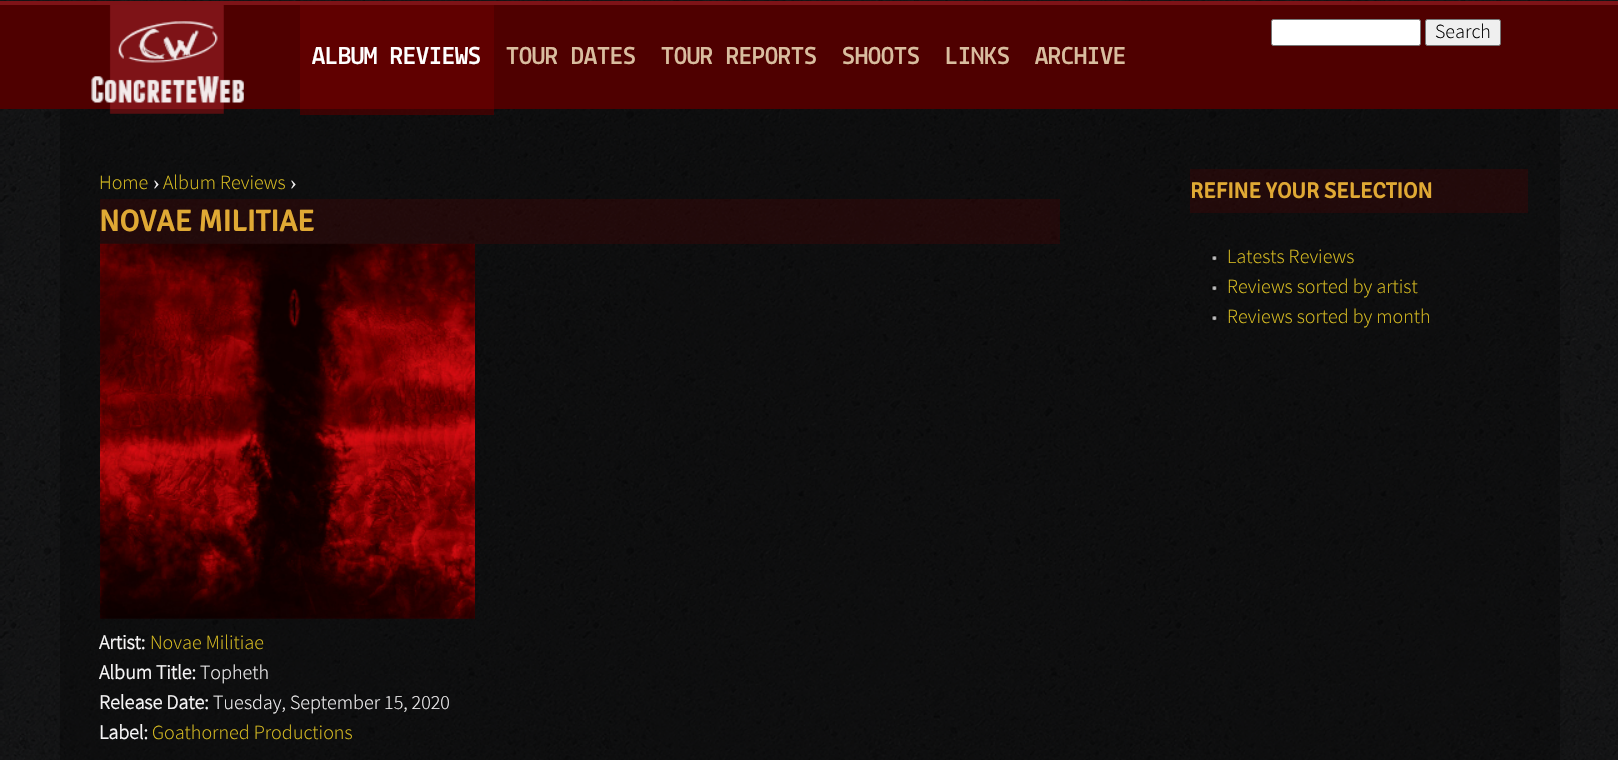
#include "include/core/SkBlurTypes.h"
#include "include/core/SkCanvas.h"
#include "include/core/SkData.h"
#include "include/core/SkFont.h"
#include "include/core/SkFontMgr.h"
#include "include/core/SkImage.h"
#include "include/core/SkMaskFilter.h"
#include "include/core/SkPaint.h"
#include "include/core/SkPathBuilder.h"
#include "include/core/SkTextBlob.h"
#include "include/effects/SkDashPathEffect.h"
#include "include/effects/SkGradientShader.h"
#include "include/utils/SkParsePath.h"

extern sk_sp<SkFontMgr> fontMgr;

void draw(SkCanvas* canvas) {
    SkPaint p;
    p.setAntiAlias(true);
    auto font = [&](const char* family, int weight, float size, bool italic = false) {
        SkFontStyle style(weight, SkFontStyle::kNormal_Width,
            italic ? SkFontStyle::kItalic_Slant : SkFontStyle::kUpright_Slant);
        SkFont result(fontMgr->matchFamilyStyle(family, style), size);
        result.setSubpixel(true);
        return result;
    };
    auto drawPhoto = [&](const char* path, float l, float t, float r, float b) {
        auto image = SkImages::DeferredFromEncodedData(SkData::MakeFromFileName(path));
        canvas->drawImageRect(image, SkRect::MakeLTRB(l, t, r, b), SkSamplingOptions());
    };
    canvas->clear(0xFFFFFFFF);
    drawPhoto("media/1.png", 0, 0, 1618, 760);
    p.setColor(0xFF4F0000);
    canvas->drawRect(SkRect::MakeLTRB(0, 5, 1618, 109), p);
    p.setColor(0xFF7E1317);
    canvas->drawRect(SkRect::MakeLTRB(0, 1, 1618, 5), p);
    drawPhoto("media/2.png", 91, 5, 244, 114);
    p.setColor(0xFFFFFFFF);
    canvas->drawRoundRect(SkRect::MakeLTRB(1271.5f, 19.5f, 1420.5f, 45.5f), 2, 2, p);
    p.setStyle(SkPaint::kStroke_Style);
    p.setStrokeWidth(1);
    p.setColor(0xFF767676);
    canvas->drawRoundRect(SkRect::MakeLTRB(1271.5f, 19.5f, 1420.5f, 45.5f), 2, 2, p);
    p.setStyle(SkPaint::kFill_Style);
    p.setColor(0xFFEFEFEF);
    canvas->drawRoundRect(SkRect::MakeLTRB(1425.5f, 19.5f, 1500.5f, 45.5f), 2, 2, p);
    p.setStyle(SkPaint::kStroke_Style);
    p.setColor(0xFF767676);
    canvas->drawRoundRect(SkRect::MakeLTRB(1425.5f, 19.5f, 1500.5f, 45.5f), 2, 2, p);
    auto font1 = font("Source Sans Pro", 300, 20);
    p.setStyle(SkPaint::kFill_Style);
    p.setColor(0xFF000000);
    canvas->drawString("Search", 1435, 38, font1, p);
    p.setColor(0xCC640000);
    canvas->drawRect(SkRect::MakeLTRB(300, 5, 494, 115), p);
    auto font2 = font("Lekton", 700, 26);
    p.setColor(0xFFFFFFFF);
    canvas->drawString("ALBUM REVIEWS", 312, 64, font2, p);
    p.setColor(0xFFD9BD9F);
    {
        const struct { const char* s; float x, y; } items[] = {
            {"TOUR DATES", 506, 64},
            {"TOUR REPORTS", 661, 64},
            {"SHOOTS", 842, 64},
            {"LINKS", 945, 64},
            {"ARCHIVE", 1035, 64},
        };
        for (auto [s, x, y] : items) {
            canvas->drawString(s, x, y, font2, p);
        }
    }
    p.setColor(0x4D000000);
    canvas->drawRect(SkRect::MakeLTRB(60, 109, 1560, 760), p);
    p.setColor(0xFFD9BD21);
    canvas->drawString("Home", 99, 189, font1, p);
    auto font3 = font("Liberation Serif", 400, 20);
    p.setColor(0xFFF5F4F5);
    canvas->drawString("›", 153, 189, font3, p);
    p.setColor(0xFFD9BD21);
    canvas->drawString("Album Reviews", 163, 189, font1, p);
    p.setColor(0xFFF5F4F5);
    canvas->drawString("›", 290, 189, font3, p);
    p.setColor(0x4D4F0000);
    canvas->drawRect(SkRect::MakeLTRB(100, 199, 1060, 244), p);
    auto font4 = font("Signika", 700, 30);
    p.setColor(0xFFE0A934);
    canvas->drawString("NOVAE MILITIAE", 99, 231, font4, p);
    drawPhoto("media/3.png", 100, 243, 475, 619);
    auto font5 = font("Source Sans Pro", 700, 20);
    p.setColor(0xFFF5F4F5);
    canvas->drawString("Artist:", 99, 649, font5, p);
    p.setColor(0xFFD9BD21);
    canvas->drawString("Novae Militiae", 150, 649, font1, p);
    p.setColor(0xFFF5F4F5);
    canvas->drawString("Album Title:", 99, 679, font5, p);
    canvas->drawString("Topheth", 200, 679, font1, p);
    canvas->drawString("Release Date:", 99, 709, font5, p);
    canvas->drawString("Tuesday, September 15, 2020", 213, 709, font1, p);
    canvas->drawString("Label:", 99, 739, font5, p);
    p.setColor(0xFFD9BD21);
    canvas->drawString("Goathorned Productions", 152, 739, font1, p);
    p.setColor(0x4D4F0000);
    canvas->drawRect(SkRect::MakeLTRB(1190, 169, 1528, 213), p);
    auto font6 = font("Signika", 700, 22);
    p.setColor(0xFFE0A934);
    canvas->drawString("REFINE YOUR SELECTION", 1190, 198, font6, p);
    drawPhoto("media/4.png", 1211, 255, 1218, 262);
    p.setColor(0xFFD9BD21);
    canvas->drawString("Latests Reviews", 1227, 263, font1, p);
    drawPhoto("media/5.png", 1211, 285, 1218, 292);
    canvas->drawString("Reviews sorted by artist", 1227, 293, font1, p);
    drawPhoto("media/6.png", 1211, 315, 1218, 322);
    canvas->drawString("Reviews sorted by month", 1227, 323, font1, p);
}
